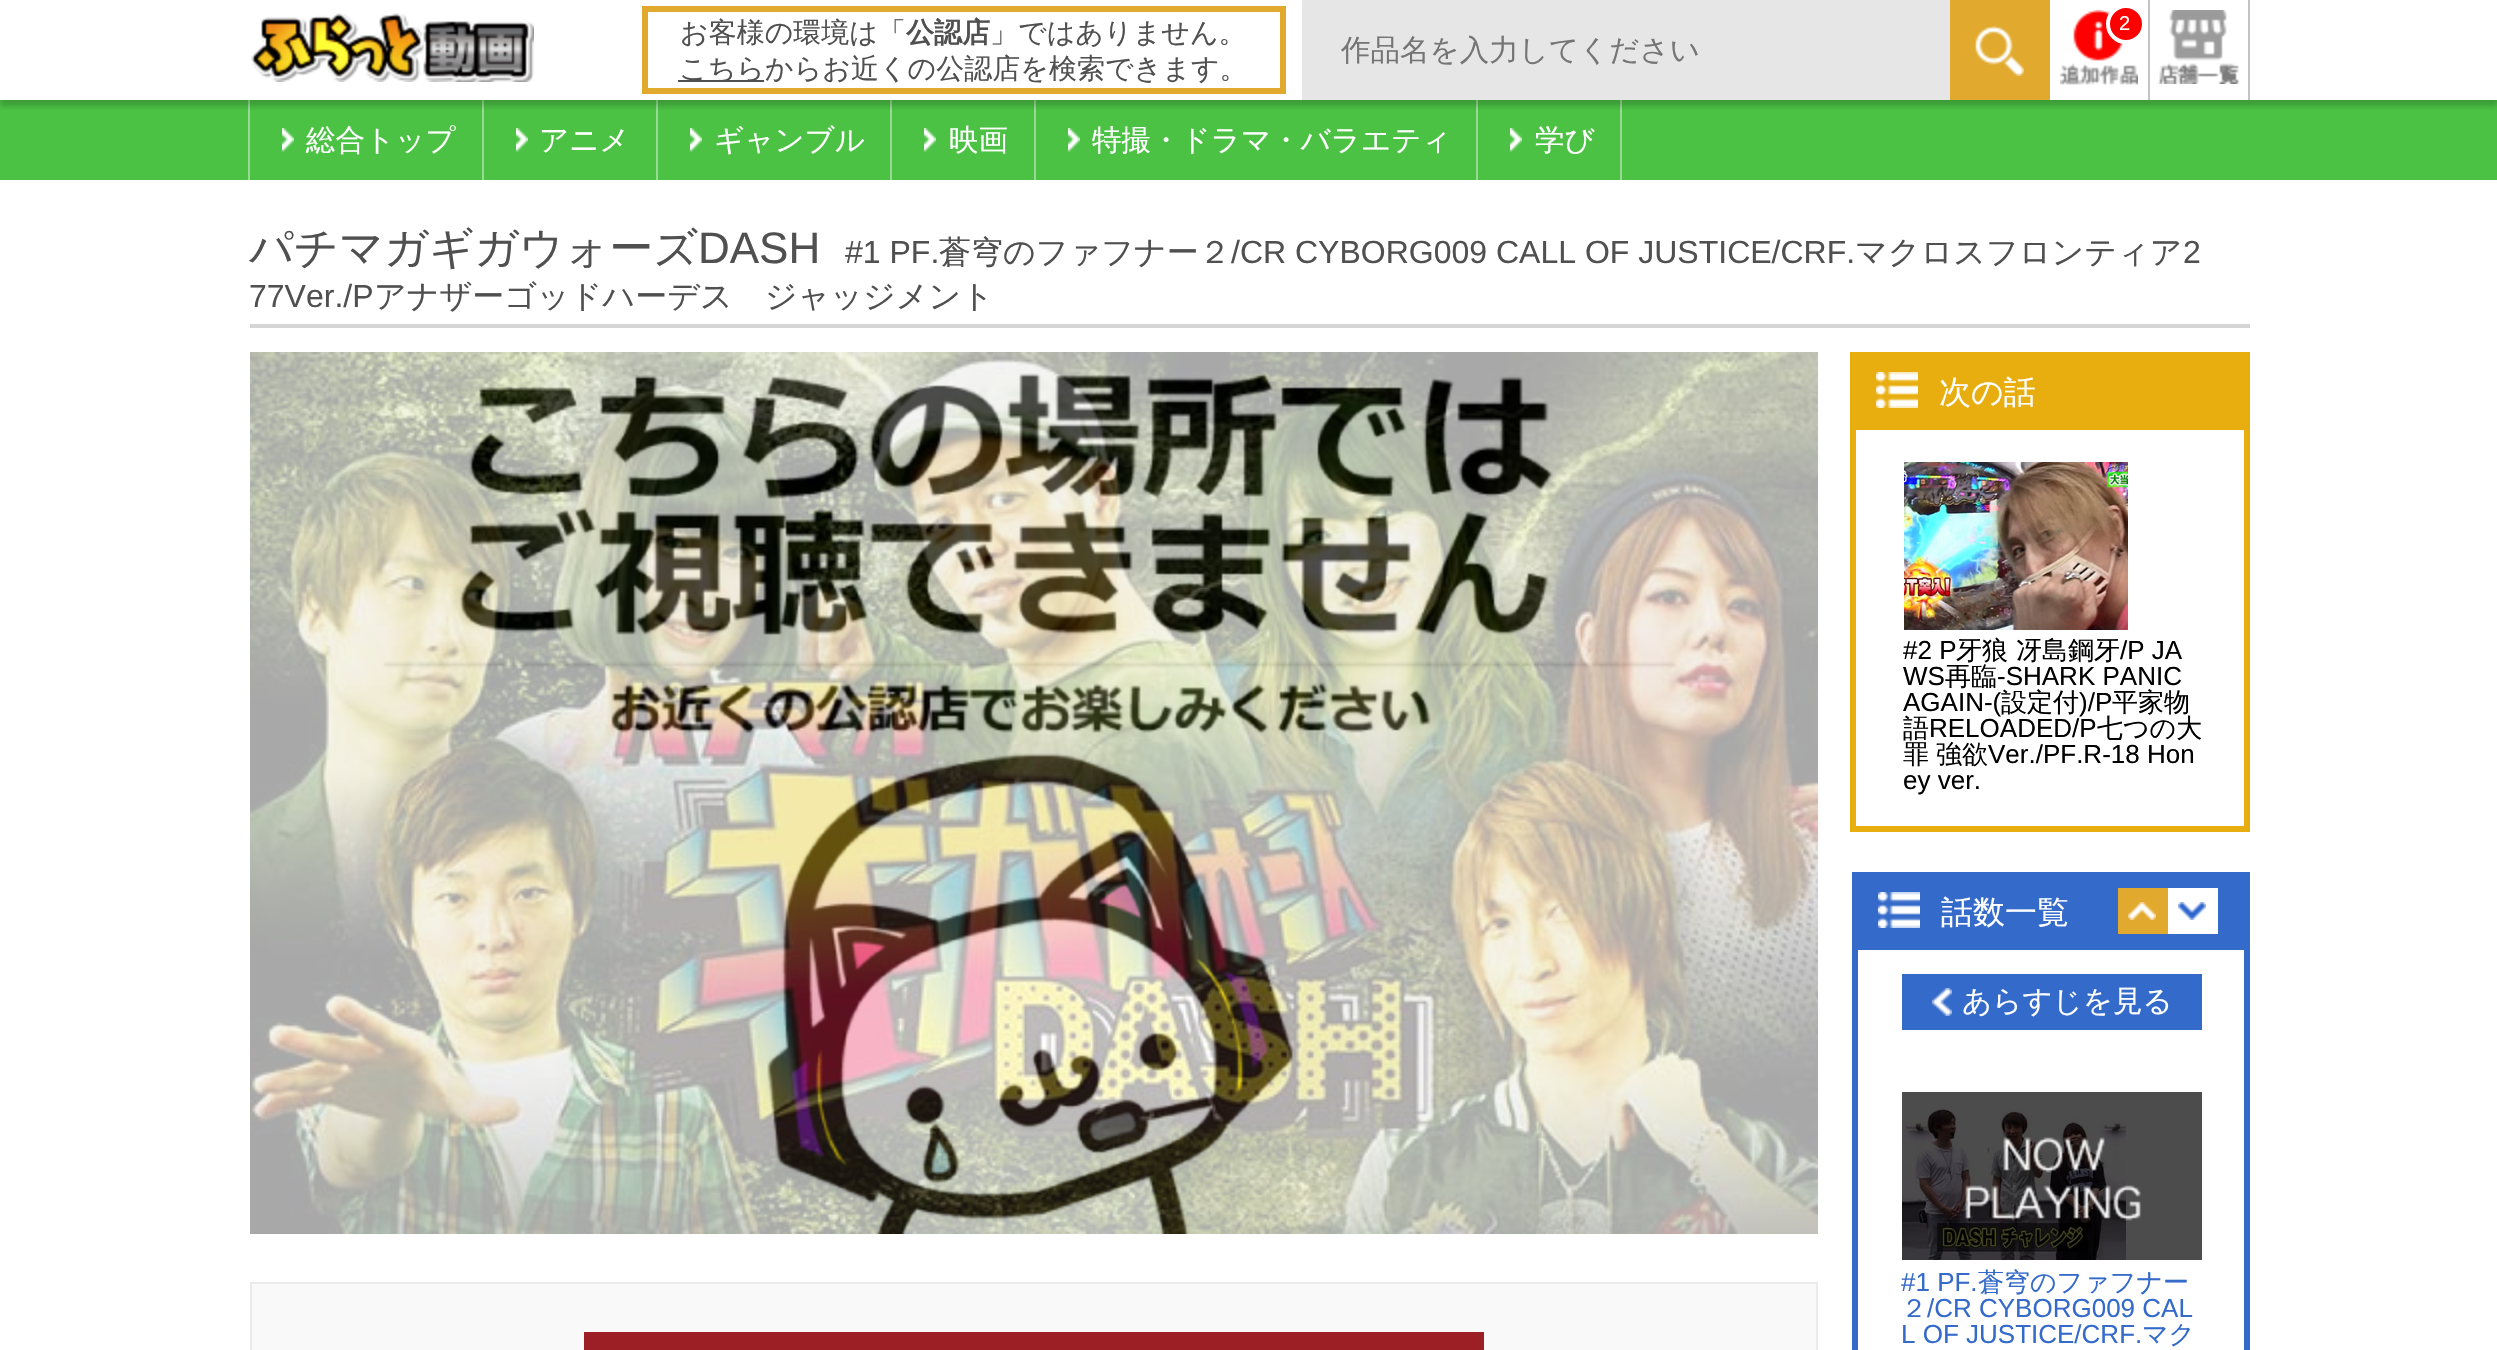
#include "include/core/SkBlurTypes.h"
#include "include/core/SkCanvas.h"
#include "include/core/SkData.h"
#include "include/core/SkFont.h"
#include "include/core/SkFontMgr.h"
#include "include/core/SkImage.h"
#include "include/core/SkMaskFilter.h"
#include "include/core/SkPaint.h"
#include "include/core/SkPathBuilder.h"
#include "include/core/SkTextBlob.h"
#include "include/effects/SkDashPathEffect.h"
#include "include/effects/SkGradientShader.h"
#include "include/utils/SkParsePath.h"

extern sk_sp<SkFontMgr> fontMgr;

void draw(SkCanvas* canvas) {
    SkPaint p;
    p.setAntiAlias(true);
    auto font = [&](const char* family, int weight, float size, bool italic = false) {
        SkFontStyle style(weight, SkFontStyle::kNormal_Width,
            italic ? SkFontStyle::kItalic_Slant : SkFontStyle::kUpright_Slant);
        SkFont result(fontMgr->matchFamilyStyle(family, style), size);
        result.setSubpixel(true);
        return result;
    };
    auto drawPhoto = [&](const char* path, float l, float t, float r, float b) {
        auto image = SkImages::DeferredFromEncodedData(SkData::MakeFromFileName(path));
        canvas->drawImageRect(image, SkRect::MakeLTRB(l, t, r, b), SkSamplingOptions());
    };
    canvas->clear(0xFFFFFFFF);
    {
        const struct { float l, t, r, b; SkColor color; } items[] = {
            {0, 100, 2497, 180, 0xFF4BC244},
            {248, 100, 250, 180, 0xFF95DB91},
            {482, 100, 484, 180, 0xFF95DB91},
            {656, 100, 658, 180, 0xFF95DB91},
            {890, 100, 892, 180, 0xFF95DB91},
            {1034, 100, 1036, 180, 0xFF95DB91},
            {1476, 100, 1478, 180, 0xFF95DB91},
            {1620, 100, 1622, 180, 0xFF95DB91},
        };
        for (auto [l, t, r, b, color] : items) {
            p.setColor(color);
            canvas->drawRect(SkRect::MakeLTRB(l, t, r, b), p);
        }
    }
    canvas->save();
    canvas->clipRect(SkRect::MakeLTRB(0, 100, 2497, 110));
    p.setColor(0x33000000);
    p.setMaskFilter(SkMaskFilter::MakeBlur(kNormal_SkBlurStyle, 3));
    canvas->drawRect(SkRect::MakeLTRB(0, 6, 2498, 106), p);
    p.setMaskFilter(nullptr);
    canvas->restore();
    drawPhoto("media/1.png", 251, 13, 534, 82);
    p.setStyle(SkPaint::kStroke_Style);
    p.setStrokeWidth(6);
    p.setColor(0xFFE1A92D);
    canvas->drawRect(SkRect::MakeLTRB(645, 9, 1283, 91), p);
    auto font1 = font("WenQuanYi Zen Hei", 500, 28);
    p.setStyle(SkPaint::kFill_Style);
    p.setColor(0xFF505050);
    canvas->drawString("お客様の環境は「", 680, 42, font1, p);
    auto font2 = font("WenQuanYi Zen Hei", 700, 28);
    canvas->drawString("公認店", 906, 42, font2, p);
    canvas->drawString("」ではありません。", 990, 42, font1, p);
    canvas->drawRect(SkRect::MakeLTRB(678, 80, 764, 82), p);
    canvas->drawString("こちらからお近くの公認店を検索できます。", 679, 78, font1, p);
    p.setColor(0xFFE6E6E6);
    canvas->drawRect(SkRect::MakeLTRB(1302, 0, 1950, 100), p);
    auto font3 = font("WenQuanYi Zen Hei", 500, 29.5f);
    p.setColor(0xFF757575);
    canvas->drawString("作品名を入力してください", 1341, 60, font3, p);
    p.setColor(0xFFE1A92D);
    canvas->drawRect(SkRect::MakeLTRB(1950, 0, 2050, 100), p);
    drawPhoto("media/2.png", 1975, 26, 2024, 76);
    p.setColor(0xFFC3C3C3);
    canvas->drawRect(SkRect::MakeLTRB(2148, 0, 2150, 100), p);
    drawPhoto("media/3.png", 2060, 10, 2138, 85);
    p.setColor(0xFFFF0000);
    canvas->drawCircle(2126, 24, 18, p);
    p.setStyle(SkPaint::kStroke_Style);
    p.setStrokeWidth(4);
    p.setColor(0xFFFFFFFF);
    canvas->drawCircle(2126, 24, 18, p);
    auto font4 = font("Liberation Sans", 400, 20);
    p.setStyle(SkPaint::kFill_Style);
    canvas->drawString("2", 2119, 30, font4, p);
    p.setColor(0xFFC3C3C3);
    canvas->drawRect(SkRect::MakeLTRB(2248, 0, 2250, 100), p);
    drawPhoto("media/4.png", 2158, 10, 2240, 84);
    drawPhoto("media/5.png", 282, 128, 294, 152);
    p.setColor(0xFFFFFFFF);
    canvas->drawString("総合トップ", 306, 150, font3, p);
    drawPhoto("media/5.png", 516, 128, 528, 152);
    canvas->drawString("アニメ", 539, 150, font3, p);
    drawPhoto("media/5.png", 690, 128, 702, 152);
    canvas->drawString("ギャンブル", 714, 150, font3, p);
    drawPhoto("media/5.png", 924, 128, 936, 152);
    canvas->drawString("映画", 949, 150, font3, p);
    drawPhoto("media/5.png", 1068, 128, 1080, 152);
    canvas->drawString("特撮・ドラマ・バラエティ", 1092, 150, font3, p);
    drawPhoto("media/5.png", 1510, 128, 1522, 152);
    canvas->drawString("学び", 1535, 150, font3, p);
    p.setColor(0xFFD5D5D5);
    canvas->drawRect(SkRect::MakeLTRB(250, 324, 2250, 328), p);
    auto font5 = font("WenQuanYi Zen Hei", 500, 44);
    p.setColor(0xFF505050);
    canvas->drawString("パチマガギガウォーズ", 249, 263, font5, p);
    auto font6 = font("Liberation Sans", 400, 44);
    canvas->drawString("DASH", 698, 263, font6, p);
    auto font7 = font("Liberation Sans", 400, 32);
    canvas->drawString("#1 PF.", 845, 263, font7, p);
    auto font8 = font("WenQuanYi Zen Hei", 500, 32);
    canvas->drawString("蒼穹のファフナー２", 939, 263, font8, p);
    canvas->drawString("/CR CYBORG009 CALL OF JUSTICE/CRF.", 1231, 263, font7, p);
    canvas->drawString("マクロスフロンティア", 1855, 263, font8, p);
    canvas->drawString("2", 2183, 263, font7, p);
    canvas->drawString("77Ver./P", 249, 307, font7, p);
    canvas->drawString("アナザーゴッドハーデス　ジャッジメント", 374, 307, font8, p);
    drawPhoto("media/6.png", 250, 352, 1818, 1234);
    drawPhoto("media/7.png", 250, 352, 1818, 1234);
    p.setColor(0xFFF9F9F9);
    canvas->drawRect(SkRect::MakeLTRB(251, 1283, 1817, 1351), p);
    p.setStyle(SkPaint::kStroke_Style);
    p.setStrokeWidth(2);
    p.setColor(0xFFEAEAEA);
    canvas->drawRect(SkRect::MakeLTRB(251, 1283, 1817, 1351), p);
    p.setStyle(SkPaint::kFill_Style);
    p.setColor(0xFF9B1F25);
    canvas->drawRect(SkRect::MakeLTRB(584, 1332, 1484, 1350), p);
    p.setStyle(SkPaint::kStroke_Style);
    p.setStrokeWidth(6);
    p.setColor(0xFFE8AD0E);
    canvas->drawRect(SkRect::MakeLTRB(1853, 355, 2247, 829), p);
    p.setStyle(SkPaint::kFill_Style);
    canvas->drawRect(SkRect::MakeLTRB(1856, 358, 2244, 430), p);
    drawPhoto("media/8.png", 1876, 372, 1918, 408);
    p.setColor(0xFFFFFFFF);
    canvas->drawString("次の話", 1939, 403, font8, p);
    drawPhoto("media/9.png", 1904, 462, 2128, 630);
    auto font9 = font("Liberation Sans", 400, 26);
    p.setColor(0xFF000000);
    canvas->drawString("#2 P", 1903, 659, font9, p);
    auto font10 = font("WenQuanYi Zen Hei", 500, 26);
    canvas->drawString("牙狼", 1956, 659, font10, p);
    canvas->drawString("冴島鋼牙", 2016, 659, font10, p);
    canvas->drawString("/P JA", 2120, 659, font9, p);
    canvas->drawString("WS", 1903, 685, font9, p);
    canvas->drawString("再臨", 1945, 685, font10, p);
    canvas->drawString("-SHARK PANIC", 1997, 685, font9, p);
    canvas->drawString("AGAIN-(", 1903, 711, font9, p);
    canvas->drawString("設定付", 2001, 711, font10, p);
    canvas->drawString(")/P", 2079, 711, font9, p);
    canvas->drawString("平家物", 2112, 711, font10, p);
    canvas->drawString("語", 1903, 737, font10, p);
    canvas->drawString("RELOADED/P", 1929, 737, font9, p);
    {
        const struct { const char* s; float x, y; } items[] = {
            {"七つの大", 2097, 737},
            {"罪", 1903, 763},
            {"強欲", 1936, 763},
        };
        for (auto [s, x, y] : items) {
            canvas->drawString(s, x, y, font10, p);
        }
    }
    canvas->drawString("Ver./PF.R-18 Hon", 1988, 763, font9, p);
    canvas->drawString("ey ver.", 1903, 789, font9, p);
    p.setStyle(SkPaint::kStroke_Style);
    p.setColor(0xFF346AC9);
    canvas->drawRect(SkRect::MakeLTRB(1855, 875, 2247, 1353), p);
    p.setStyle(SkPaint::kFill_Style);
    canvas->drawRect(SkRect::MakeLTRB(1858, 878, 2244, 950), p);
    drawPhoto("media/10.png", 1878, 892, 1920, 928);
    p.setColor(0xFFFFFFFF);
    canvas->drawString("話数一覧", 1941, 923, font8, p);
    p.setColor(0xFFE1A92D);
    canvas->drawRect(SkRect::MakeLTRB(2118, 888, 2168, 934), p);
    drawPhoto("media/11.png", 2128, 902, 2156, 920);
    p.setColor(0xFFFFFFFF);
    canvas->drawRect(SkRect::MakeLTRB(2168, 888, 2218, 934), p);
    drawPhoto("media/12.png", 2178, 902, 2206, 920);
    p.setColor(0xFF346AC9);
    canvas->drawRect(SkRect::MakeLTRB(1902, 974, 2202, 1030), p);
    drawPhoto("media/13.png", 1932, 988, 1952, 1016);
    p.setColor(0xFFFFFFFF);
    canvas->drawString("あらすじを見る", 1962, 1011, font3, p);
    drawPhoto("media/15.png", 1902, 1105, 2126, 1260);
    drawPhoto("media/14.png", 1902, 1092, 2202, 1260);
    p.setColor(0xFF346AC9);
    canvas->drawString("#1 PF.", 1901, 1291, font9, p);
    canvas->drawString("蒼穹のファフナー", 1978, 1291, font10, p);
    canvas->drawString("２", 1901, 1317, font10, p);
    canvas->drawString("/CR CYBORG009 CAL", 1927, 1317, font9, p);
    canvas->drawString("L OF JUSTICE/CRF.", 1901, 1343, font9, p);
    canvas->drawString("マク", 2142, 1343, font10, p);
}
